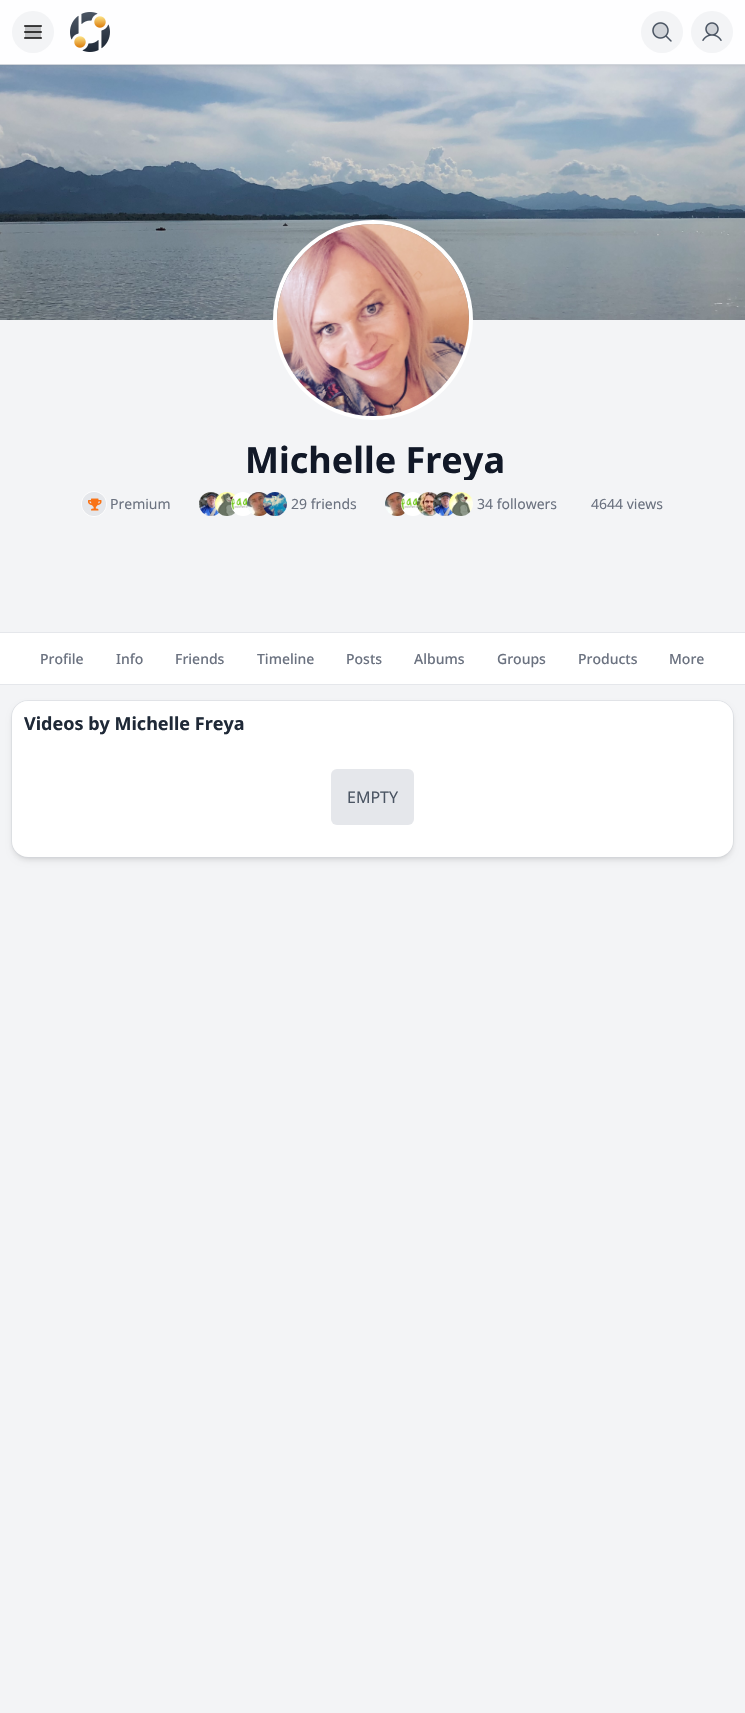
#include "include/core/SkBlurTypes.h"
#include "include/core/SkCanvas.h"
#include "include/core/SkData.h"
#include "include/core/SkFont.h"
#include "include/core/SkFontMgr.h"
#include "include/core/SkImage.h"
#include "include/core/SkMaskFilter.h"
#include "include/core/SkPaint.h"
#include "include/core/SkPathBuilder.h"
#include "include/core/SkTextBlob.h"
#include "include/effects/SkDashPathEffect.h"
#include "include/effects/SkGradientShader.h"
#include "include/utils/SkParsePath.h"

extern sk_sp<SkFontMgr> fontMgr;

void draw(SkCanvas* canvas) {
    SkPaint p;
    p.setAntiAlias(true);
    auto font = [&](const char* family, int weight, float size, bool italic = false) {
        SkFontStyle style(weight, SkFontStyle::kNormal_Width,
            italic ? SkFontStyle::kItalic_Slant : SkFontStyle::kUpright_Slant);
        SkFont result(fontMgr->matchFamilyStyle(family, style), size);
        result.setSubpixel(true);
        return result;
    };
    auto drawPhoto = [&](const char* path, float l, float t, float r, float b) {
        auto image = SkImages::DeferredFromEncodedData(SkData::MakeFromFileName(path));
        canvas->drawImageRect(image, SkRect::MakeLTRB(l, t, r, b), SkSamplingOptions());
    };
    canvas->clear(0xFFF3F4F6);
    drawPhoto("media/5.png", 0, 65, 745, 320);
    p.setColor(0x1A000000);
    p.setMaskFilter(SkMaskFilter::MakeBlur(kNormal_SkBlurStyle, 1.5f));
    canvas->drawRect(SkRect::MakeLTRB(0, 1, 745, 65), p);
    p.setMaskFilter(nullptr);
    p.setStyle(SkPaint::kStroke_Style);
    p.setStrokeWidth(1);
    p.setColor(0xFFD1D5DB);
    canvas->drawRect(SkRect::MakeLTRB(-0.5f, -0.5f, 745.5f, 64.5f), p);
    p.setStyle(SkPaint::kFill_Style);
    p.setColor(0xFFFEFEFF);
    canvas->drawRect(SkRect::MakeLTRB(0, 0, 745, 64), p);
    p.setColor(0xFFF3F4F6);
    canvas->drawCircle(33, 32, 21, p);
    drawPhoto("media/1.png", 24, 25, 42, 39);
    drawPhoto("media/2.png", 70, 12, 110, 52);
    canvas->drawCircle(662, 32, 21, p);
    drawPhoto("media/3.png", 652, 22, 672, 42);
    canvas->drawCircle(712, 32, 21, p);
    drawPhoto("media/4.png", 702, 22, 722, 41);
    p.setStyle(SkPaint::kStroke_Style);
    p.setStrokeWidth(4);
    p.setColor(0xFFFFFFFF);
    canvas->drawCircle(373, 320, 98, p);
    drawPhoto("media/6.png", 277, 224, 469, 416);
    canvas->save();
    canvas->clipRect(SkRect::MakeLTRB(24, 440, 721, 480));
    auto font1 = font("Noto Sans", 700, 36);
    p.setStyle(SkPaint::kFill_Style);
    p.setColor(0xFF111827);
    canvas->drawString("Michelle Freya", 245, 473, font1, p);
    canvas->restore();
    p.setStyle(SkPaint::kStroke_Style);
    p.setStrokeWidth(1);
    p.setColor(0xFFFFFFFF);
    canvas->drawCircle(94, 504, 12.5f, p);
    p.setStyle(SkPaint::kFill_Style);
    p.setColor(0xFFE5E7EB);
    canvas->drawCircle(94, 504, 12, p);
    drawPhoto("media/7.png", 88, 498, 102, 511);
    auto font2 = font("Noto Sans", 400, 14);
    p.setColor(0xFF6B7280);
    canvas->drawString("Premium", 110, 509, font2, p);
    drawPhoto("media/8.png", 199, 492, 219, 516);
    drawPhoto("media/9.png", 215, 492, 235, 516);
    drawPhoto("media/10.png", 231, 492, 251, 516);
    drawPhoto("media/11.png", 247, 492, 267, 516);
    drawPhoto("media/12.png", 263, 492, 287, 516);
    canvas->drawString("29 friends", 291, 509, font2, p);
    drawPhoto("media/13.png", 385, 492, 405, 516);
    drawPhoto("media/14.png", 401, 492, 421, 516);
    drawPhoto("media/15.png", 417, 492, 437, 516);
    drawPhoto("media/16.png", 433, 492, 453, 516);
    drawPhoto("media/17.png", 449, 492, 473, 516);
    canvas->drawString("34 followers", 477, 509, font2, p);
    canvas->drawString("4644 views", 591, 509, font2, p);
    {
        const struct { float l, t, r, b; SkColor color; } items[] = {
            {0, 632, 745, 633, 0xFFE5E7EB},
            {0, 633, 745, 684, 0xFFFFFFFF},
            {0, 684, 745, 685, 0xFFE5E7EB},
        };
        for (auto [l, t, r, b, color] : items) {
            p.setColor(color);
            canvas->drawRect(SkRect::MakeLTRB(l, t, r, b), p);
        }
    }
    auto font3 = font("Noto Sans", 500, 14);
    p.setColor(0xFF6B7280);
    {
        const struct { const char* s; float x, y; } items[] = {
            {"Profile", 40, 664},
            {"Info", 116, 664},
            {"Friends", 175, 664},
            {"Timeline", 257, 664},
            {"Posts", 346, 664},
            {"Albums", 414, 664},
            {"Groups", 497, 664},
            {"Products", 578, 664},
            {"More", 669, 664},
        };
        for (auto [s, x, y] : items) {
            canvas->drawString(s, x, y, font3, p);
        }
    }
    p.setColor(0x1A000000);
    p.setMaskFilter(SkMaskFilter::MakeBlur(kNormal_SkBlurStyle, 2));
    canvas->drawRoundRect(SkRect::MakeLTRB(14, 705, 731, 857), 14, 14, p);
    p.setMaskFilter(nullptr);
    p.setMaskFilter(SkMaskFilter::MakeBlur(kNormal_SkBlurStyle, 3));
    canvas->drawRoundRect(SkRect::MakeLTRB(13, 706, 732, 860), 15, 15, p);
    p.setMaskFilter(nullptr);
    p.setStyle(SkPaint::kStroke_Style);
    p.setColor(0x80D1D5DB);
    canvas->drawRoundRect(SkRect::MakeLTRB(11.5f, 700.5f, 733.5f, 857.5f), 16.5f, 16.5f, p);
    p.setStyle(SkPaint::kFill_Style);
    p.setColor(0xFFFFFFFF);
    canvas->drawRoundRect(SkRect::MakeLTRB(12, 701, 733, 857), 16, 16, p);
    auto font4 = font("Noto Sans", 700, 18);
    p.setColor(0xFF1F2937);
    canvas->drawString("Videos by Michelle Freya", 24, 730, font4, p);
    p.setColor(0xFFE5E7EB);
    canvas->drawRoundRect(SkRect::MakeLTRB(331, 769, 414, 825), 6, 6, p);
    auto font5 = font("Noto Sans", 400, 16);
    p.setColor(0xFF4B5563);
    canvas->drawString("EMPTY", 347, 803, font5, p);
}
